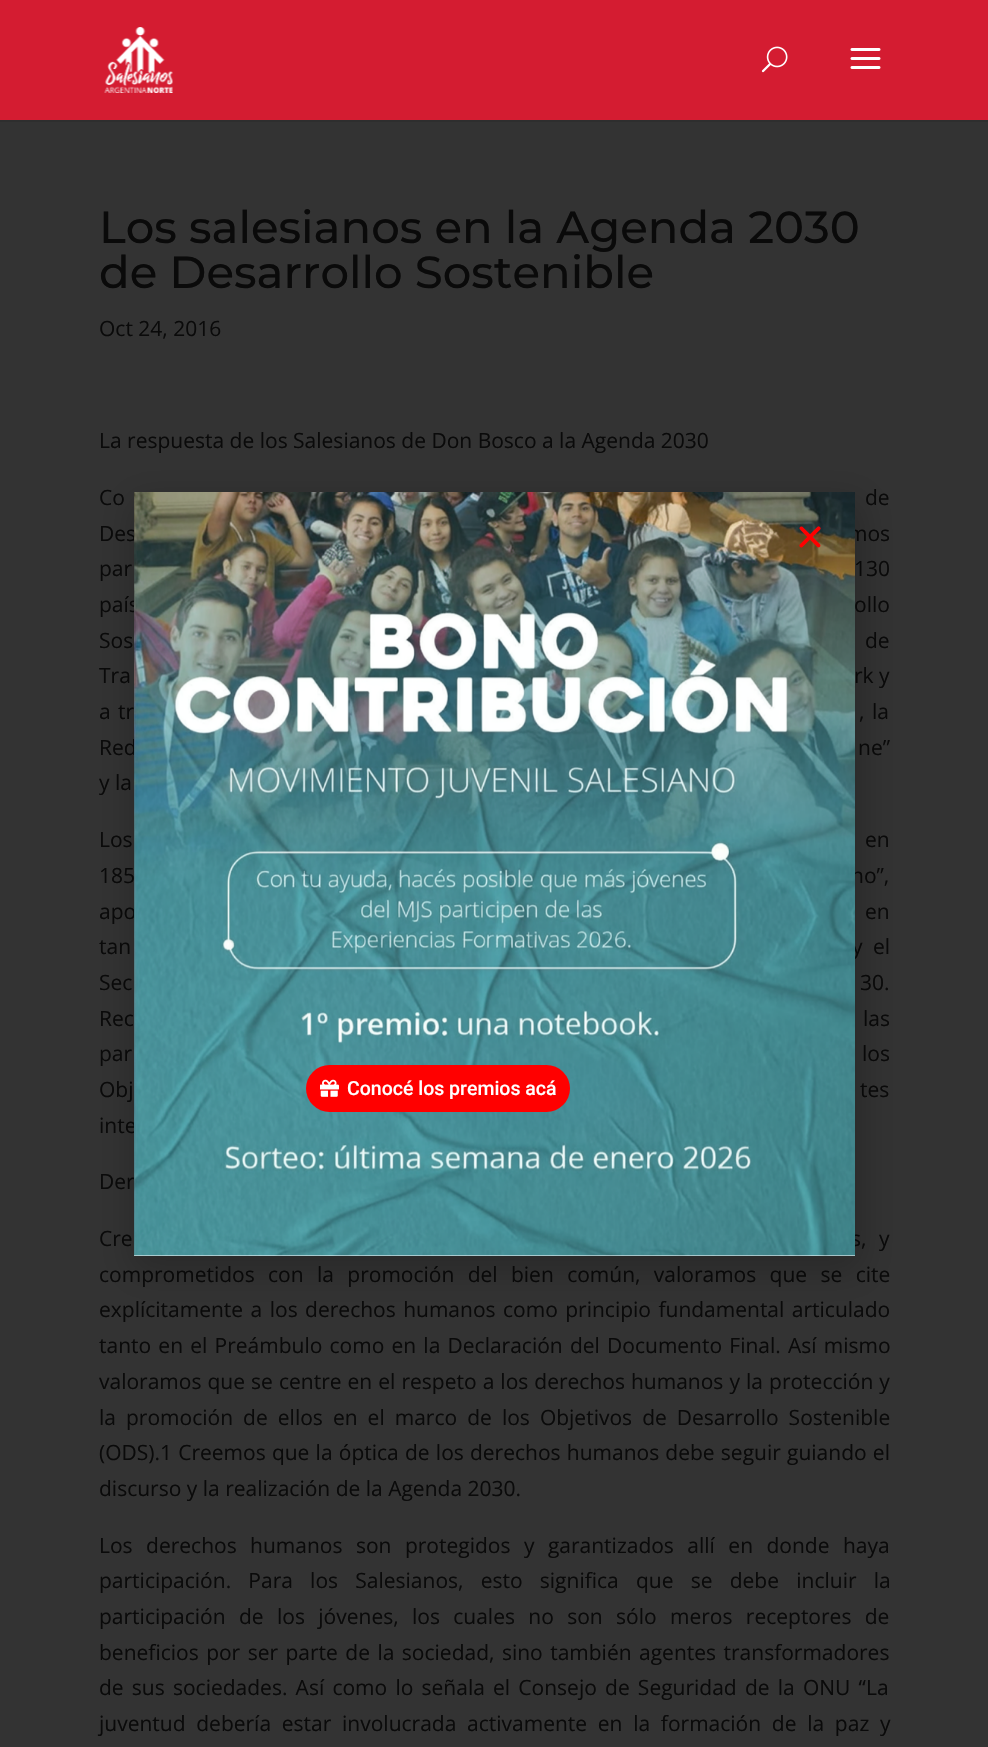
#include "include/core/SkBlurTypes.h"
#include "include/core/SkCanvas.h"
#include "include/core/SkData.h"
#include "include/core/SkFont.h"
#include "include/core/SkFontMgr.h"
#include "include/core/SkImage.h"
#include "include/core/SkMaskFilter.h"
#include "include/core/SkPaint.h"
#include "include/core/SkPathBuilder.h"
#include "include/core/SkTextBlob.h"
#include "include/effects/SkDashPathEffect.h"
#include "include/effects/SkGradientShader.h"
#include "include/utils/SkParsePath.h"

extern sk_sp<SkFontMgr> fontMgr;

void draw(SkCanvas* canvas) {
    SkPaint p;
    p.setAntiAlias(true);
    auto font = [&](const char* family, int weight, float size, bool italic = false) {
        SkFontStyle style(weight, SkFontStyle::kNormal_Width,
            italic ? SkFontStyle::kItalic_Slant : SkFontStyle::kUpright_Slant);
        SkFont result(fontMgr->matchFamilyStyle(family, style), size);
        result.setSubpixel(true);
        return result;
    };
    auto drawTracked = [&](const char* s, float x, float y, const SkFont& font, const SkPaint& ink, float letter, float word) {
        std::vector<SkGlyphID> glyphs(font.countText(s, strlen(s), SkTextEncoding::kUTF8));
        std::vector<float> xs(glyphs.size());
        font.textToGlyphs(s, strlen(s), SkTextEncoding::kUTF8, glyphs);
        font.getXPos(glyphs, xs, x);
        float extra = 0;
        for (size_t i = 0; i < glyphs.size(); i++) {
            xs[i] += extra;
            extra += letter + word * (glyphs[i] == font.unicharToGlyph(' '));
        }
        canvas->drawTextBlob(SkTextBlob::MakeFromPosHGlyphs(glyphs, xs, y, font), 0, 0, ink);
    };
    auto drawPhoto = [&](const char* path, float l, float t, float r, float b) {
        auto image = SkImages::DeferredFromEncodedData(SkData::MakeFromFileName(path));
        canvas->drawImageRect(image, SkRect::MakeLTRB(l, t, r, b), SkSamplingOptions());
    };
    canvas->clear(0xFF333333);
    p.setColor(0xFF2E2E2E);
    canvas->drawPath(SkPathBuilder().moveTo(0, 120).lineTo(0, 122).lineTo(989, 122).lineTo(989, 2).lineTo(988, 2).lineTo(988, 120).close().detach(), p);
    p.setColor(0xFFD41C31);
    canvas->drawRect(SkRect::MakeLTRB(0, 0, 988, 120), p);
    drawPhoto("media/1.png", 104, 27, 173, 93);
    drawPhoto("media/2.png", 761, 46, 788, 73);
    drawPhoto("media/3.png", 850, 48, 881, 69);
    auto font1 = font("Montserrat", 500, 45);
    p.setColor(0xFF0A0A0A);
    canvas->drawString("Los salesianos en la Agenda 2030", 99, 243, font1, p);
    canvas->drawString("de Desarrollo Sostenible", 99, 288, font1, p);
    auto font2 = font("Open Sans", 400, 21);
    canvas->drawString("Oct 24, 2016", 99, 336, font2, p);
    canvas->drawString("La respuesta de los Salesianos de Don Bosco a la Agenda 2030", 99, 448, font2, p);
    {
        const struct { const char* s; float x, y; } items[] = {
            {"Co", 99, 505},
            {"de", 865, 505},
            {"Des", 99, 541},
            {"mos", 848, 541},
        };
        for (auto [s, x, y] : items) {
            drawTracked(s, x, y, font2, p, 0, 4);
        }
    }
    {
        const struct { const char* s; float x, y; } items[] = {
            {"par", 99, 576},
            {"130", 854, 576},
            {"país", 99, 612},
            {"ollo", 854, 612},
        };
        for (auto [s, x, y] : items) {
            drawTracked(s, x, y, font2, p, 0, 3);
        }
    }
    drawTracked("Sos", 99, 648, font2, p, 0, 7);
    drawTracked("de", 865, 648, font2, p, 0, 7);
    canvas->drawString("Tra", 99, 683, font2, p);
    canvas->drawString("rk y", 854, 683, font2, p);
    drawTracked("a tr", 99, 719, font2, p, 0, 2);
    drawTracked(", la", 859, 719, font2, p, 0, 2);
    drawTracked("Red", 99, 755, font2, p, 0, 1);
    drawTracked("ne”", 858, 755, font2, p, 0, 1);
    canvas->drawString("y la", 99, 790, font2, p);
    drawTracked("Los", 99, 847, font2, p, 0, 4.6f);
    drawTracked("en", 865, 847, font2, p, 0, 4.6f);
    drawTracked("185", 99, 883, font2, p, 0, 3);
    drawTracked("no”,", 851, 883, font2, p, 0, 3);
    drawTracked("apo", 99, 919, font2, p, 0, 1);
    drawTracked("en", 865, 919, font2, p, 0, 1);
    drawTracked("tan", 99, 954, font2, p, 0, 5);
    drawTracked("y el", 852, 954, font2, p, 0, 5);
    drawTracked("Sec", 99, 990, font2, p, 0, 13);
    drawTracked("30.", 860, 990, font2, p, 0, 13);
    drawTracked("Rec", 99, 1026, font2, p, 0, 4);
    drawTracked("las", 863, 1026, font2, p, 0, 4);
    drawTracked("par", 99, 1061, font2, p, 0, 3);
    drawTracked("los", 862, 1061, font2, p, 0, 3);
    drawTracked("Obj", 99, 1097, font2, p, 0, 8);
    drawTracked("tes", 860, 1097, font2, p, 0, 8);
    canvas->drawString("inte", 99, 1133, font2, p);
    canvas->drawString("Der", 99, 1189, font2, p);
    drawTracked("Cre", 99, 1246, font2, p, 0, 7);
    drawTracked("s, y", 851, 1246, font2, p, 0, 7);
    drawTracked("comprometidos con la promoción del bien común, valoramos que se cite", 99, 1282, font2, p, 0, 7.9f);
    drawTracked("explícitamente a los derechos humanos como principio fundamental articulado", 99, 1317, font2, p, 0, 2);
    drawTracked("tanto en el Preámbulo como en la Declaración del Documento Final. Así mismo", 99, 1353, font2, p, 0, 1.75f);
    drawTracked("valoramos que se centre en el respeto a los derechos humanos y la protección y", 99, 1389, font2, p, 0, 0.6f);
    drawTracked("la promoción de ellos en el marco de los Objetivos de Desarrollo Sostenible", 99, 1425, font2, p, 0, 4.6f);
    drawTracked("(ODS).1 Creemos que la óptica de los derechos humanos debe seguir guiando el", 99, 1460, font2, p, 0, 0.75f);
    canvas->drawString("discurso y la realización de la Agenda 2030.", 99, 1496, font2, p);
    drawTracked("Los derechos humanos son protegidos y garantizados allí en donde haya", 99, 1553, font2, p, 0, 8);
    drawTracked("participación. Para los Salesianos, esto significa que se debe incluir la", 99, 1588, font2, p, 0, 11.75f);
    drawTracked("participación de los jóvenes, los cuales no son sólo meros receptores de", 99, 1624, font2, p, 0, 7.9f);
    drawTracked("beneficios por ser parte de la sociedad, sino también agentes transformadores", 99, 1660, font2, p, 0, 2);
    drawTracked("de sus sociedades. Así como lo señala el Consejo de Seguridad de la ONU “La", 99, 1695, font2, p, 0, 2.75f);
    drawTracked("juventud debería estar involucrada activamente en la formación de la paz y", 99, 1731, font2, p, 0, 5.25f);
    p.setColor(0x33000000);
    p.setMaskFilter(SkMaskFilter::MakeBlur(kNormal_SkBlurStyle, 17));
    canvas->drawRect(SkRect::MakeLTRB(132, 500, 863, 1272), p);
    p.setMaskFilter(nullptr);
    p.setColor(0xFFFFFFFF);
    canvas->drawRect(SkRect::MakeLTRB(134, 1255, 855, 1256), p);
    drawPhoto("media/5.png", 134, 492, 855, 1256);
    drawPhoto("media/4.png", 799, 526, 821, 548);
    p.setColor(0xFFFF0000);
    canvas->drawRoundRect(SkRect::MakeLTRB(306, 1065, 570, 1112), 23.5f, 23.5f, p);
    drawPhoto("media/6.png", 320, 1079, 339, 1097);
    auto font3 = font("Roboto", 500, 19.5f);
    p.setColor(0xFFFFFFFF);
    canvas->drawString("Conocé los premios acá", 347, 1095, font3, p);
}
